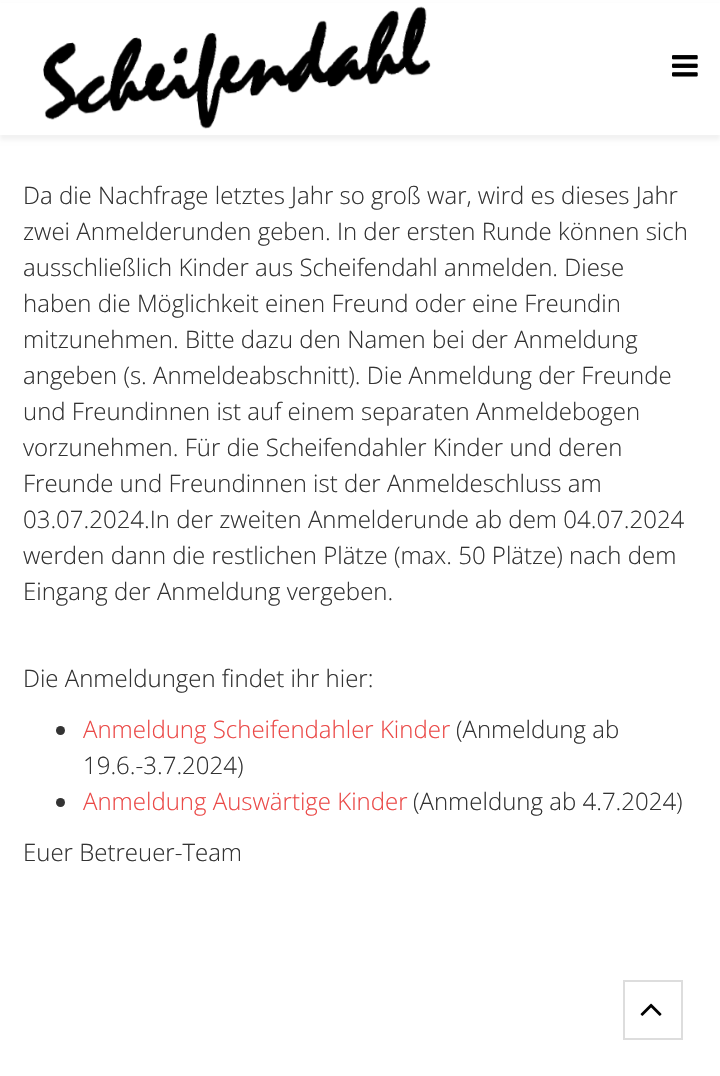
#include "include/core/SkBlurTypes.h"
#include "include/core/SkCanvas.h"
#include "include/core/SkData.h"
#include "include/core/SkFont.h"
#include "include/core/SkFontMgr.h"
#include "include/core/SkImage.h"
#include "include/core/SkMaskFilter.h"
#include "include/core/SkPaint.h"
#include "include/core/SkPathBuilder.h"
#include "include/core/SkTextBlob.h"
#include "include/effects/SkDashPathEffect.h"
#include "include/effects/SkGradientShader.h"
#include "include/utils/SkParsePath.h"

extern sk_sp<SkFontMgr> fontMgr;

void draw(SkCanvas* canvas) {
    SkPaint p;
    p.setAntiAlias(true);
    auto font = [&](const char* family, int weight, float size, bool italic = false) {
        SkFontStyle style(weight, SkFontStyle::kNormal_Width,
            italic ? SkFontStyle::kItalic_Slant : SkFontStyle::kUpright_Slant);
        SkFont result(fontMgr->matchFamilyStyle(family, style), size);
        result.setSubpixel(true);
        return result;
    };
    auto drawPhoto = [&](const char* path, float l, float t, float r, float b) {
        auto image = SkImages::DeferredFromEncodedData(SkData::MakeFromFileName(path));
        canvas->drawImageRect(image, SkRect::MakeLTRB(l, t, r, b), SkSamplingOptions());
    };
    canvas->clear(0xFFFFFFFF);
    p.setColor(0x0D000000);
    p.setMaskFilter(SkMaskFilter::MakeBlur(kNormal_SkBlurStyle, 2));
    canvas->drawRect(SkRect::MakeLTRB(0, 5, 720, 140), p);
    p.setMaskFilter(nullptr);
    p.setColor(0xFFFFFFFF);
    canvas->drawRect(SkRect::MakeLTRB(0, 3, 720, 135), p);
    drawPhoto("media/1.png", 43, 6, 431, 129);
    drawPhoto("media/2.png", 672, 55, 698, 77);
    auto font1 = font("Open Sans", 300, 24);
    p.setColor(0xFF333333);
    {
        const struct { const char* s; float x, y; } items[] = {
            {"Da die Nachfrage letztes Jahr so groß war, wird es dieses Jahr", 23, 204},
            {"zwei Anmelderunden geben. In der ersten Runde können sich", 23, 240},
            {"ausschließlich Kinder aus Scheifendahl anmelden. Diese", 23, 276},
            {"haben die Möglichkeit einen Freund oder eine Freundin", 23, 312},
            {"mitzunehmen. Bitte dazu den Namen bei der Anmeldung", 23, 348},
            {"angeben (s. Anmeldeabschnitt). Die Anmeldung der Freunde", 23, 384},
            {"und Freundinnen ist auf einem separaten Anmeldebogen", 23, 420},
            {"vorzunehmen. Für die Scheifendahler Kinder und deren", 23, 456},
            {"Freunde und Freundinnen ist der Anmeldeschluss am", 23, 492},
            {"03.07.2024.In der zweiten Anmelderunde ab dem 04.07.2024", 23, 528},
            {"werden dann die restlichen Plätze (max. 50 Plätze) nach dem", 23, 564},
            {"Eingang der Anmeldung vergeben.", 23, 600},
            {"Die Anmeldungen findet ihr hier:", 23, 687},
        };
        for (auto [s, x, y] : items) {
            canvas->drawString(s, x, y, font1, p);
        }
    }
    canvas->drawCircle(60.5f, 730.5f, 4.5f, p);
    p.setColor(0xFFEB4947);
    canvas->drawString("Anmeldung Scheifendahler Kinder", 83, 738, font1, p);
    p.setColor(0xFF333333);
    canvas->drawString("(Anmeldung ab", 456, 738, font1, p);
    canvas->drawString("19.6.-3.7.2024)", 83, 774, font1, p);
    canvas->drawCircle(60.5f, 802.5f, 4.5f, p);
    p.setColor(0xFFEB4947);
    canvas->drawString("Anmeldung Auswärtige Kinder", 83, 810, font1, p);
    p.setColor(0xFF333333);
    canvas->drawString("(Anmeldung ab 4.7.2024)", 413, 810, font1, p);
    canvas->drawString("Euer Betreuer-Team", 23, 861, font1, p);
    p.setStyle(SkPaint::kStroke_Style);
    p.setStrokeWidth(2);
    p.setColor(0xFFDDDDDD);
    canvas->drawRect(SkRect::MakeLTRB(624, 981, 682, 1039), p);
    drawPhoto("media/3.png", 640, 1003, 662, 1016);
}
